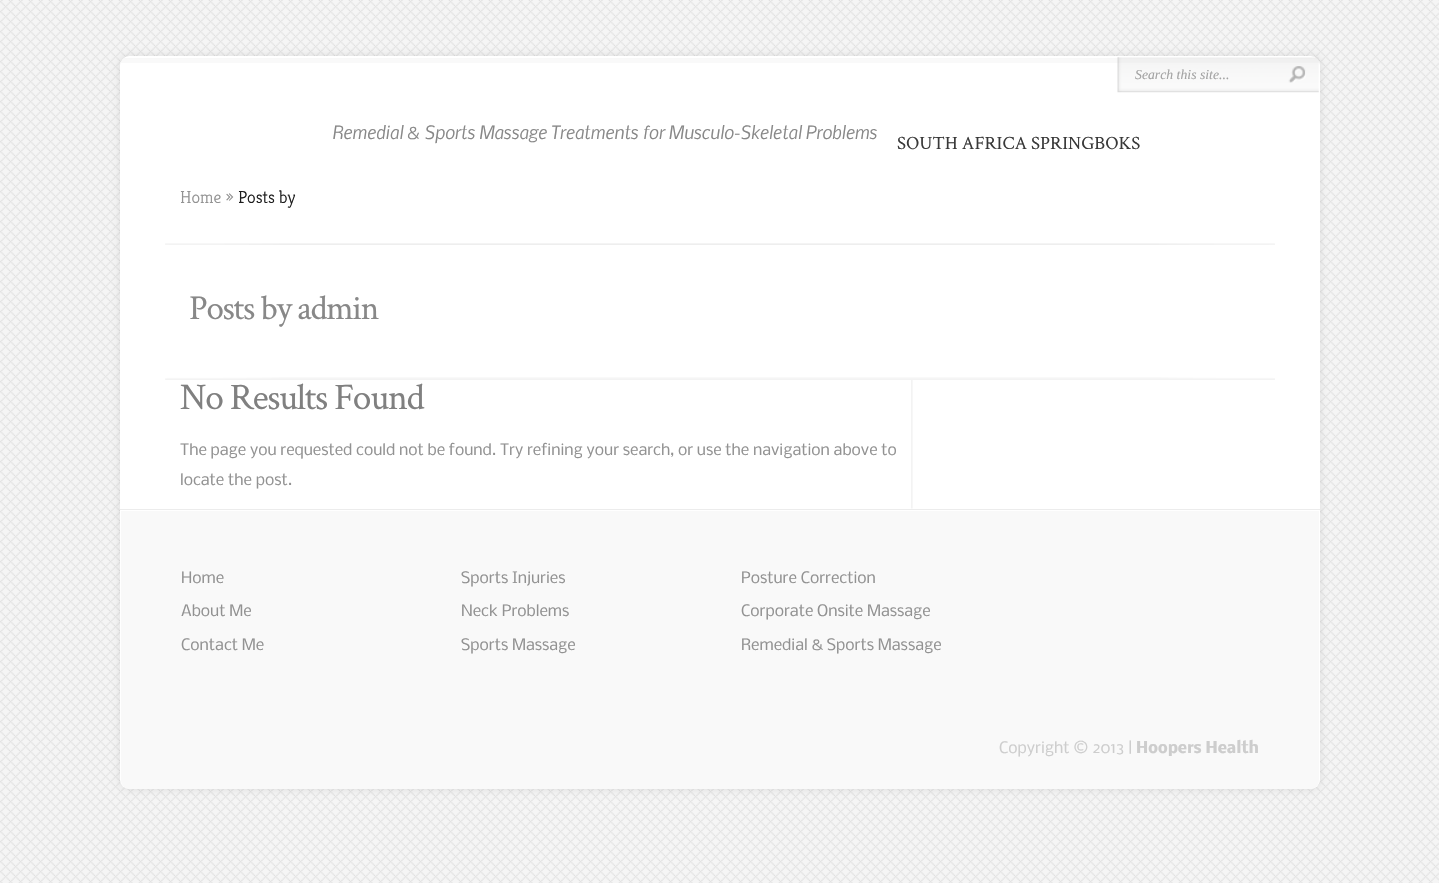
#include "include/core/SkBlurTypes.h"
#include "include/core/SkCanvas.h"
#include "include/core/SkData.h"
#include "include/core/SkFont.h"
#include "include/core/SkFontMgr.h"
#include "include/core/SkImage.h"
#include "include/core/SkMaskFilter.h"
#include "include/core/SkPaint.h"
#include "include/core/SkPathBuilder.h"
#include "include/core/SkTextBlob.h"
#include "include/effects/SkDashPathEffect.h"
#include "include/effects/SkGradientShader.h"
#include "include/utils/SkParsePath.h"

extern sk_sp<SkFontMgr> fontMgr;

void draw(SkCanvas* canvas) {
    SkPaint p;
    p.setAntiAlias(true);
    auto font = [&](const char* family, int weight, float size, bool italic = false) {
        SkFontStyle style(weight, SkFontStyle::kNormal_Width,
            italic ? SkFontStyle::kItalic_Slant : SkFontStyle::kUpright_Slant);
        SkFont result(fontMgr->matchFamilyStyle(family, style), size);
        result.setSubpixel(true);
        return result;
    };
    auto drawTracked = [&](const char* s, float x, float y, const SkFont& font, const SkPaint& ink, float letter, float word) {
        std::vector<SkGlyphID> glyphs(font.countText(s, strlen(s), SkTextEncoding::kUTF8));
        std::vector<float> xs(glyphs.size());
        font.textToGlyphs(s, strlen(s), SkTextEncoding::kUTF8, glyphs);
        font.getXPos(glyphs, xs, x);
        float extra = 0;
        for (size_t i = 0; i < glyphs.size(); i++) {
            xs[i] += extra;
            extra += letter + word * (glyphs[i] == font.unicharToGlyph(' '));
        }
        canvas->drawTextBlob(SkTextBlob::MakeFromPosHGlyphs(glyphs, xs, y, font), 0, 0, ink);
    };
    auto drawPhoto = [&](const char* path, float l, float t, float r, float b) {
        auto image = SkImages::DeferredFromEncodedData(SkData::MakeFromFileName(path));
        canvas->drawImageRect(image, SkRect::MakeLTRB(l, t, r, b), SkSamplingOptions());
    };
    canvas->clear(0xFFF5F5F5);
    drawPhoto("media/1.png", 0, 0, 1439, 883);
    p.setColor(0x1A000000);
    p.setMaskFilter(SkMaskFilter::MakeBlur(kNormal_SkBlurStyle, 4));
    canvas->drawRoundRect(SkRect::MakeLTRB(120, 56, 1320, 789), 9, 9, p);
    p.setMaskFilter(nullptr);
    p.setColor(0xFFFFFFFF);
    canvas->drawRoundRect(SkRect::MakeLTRB(120, 56, 1320, 789), 9, 9, p);
    drawPhoto("media/2.png", 121, 58, 1319, 63);
    drawPhoto("media/3.png", 1117, 57, 1319, 93);
    auto font1 = font("Liberation Serif", 400, 13.75f, true);
    p.setColor(0xFFA3A3A3);
    canvas->drawString("Search this site...", 1135, 79, font1, p);
    drawPhoto("media/4.png", 1288, 66, 1306, 83);
    auto font2 = font("Nobile", 400, 17.5f, true);
    p.setColor(0xFF888888);
    canvas->drawString("Remedial & Sports Massage Treatments for Musculo-Skeletal Problems", 332, 139, font2, p);
    auto font3 = font("Crimson Text", 400, 18.75f);
    p.setColor(0xFF393939);
    canvas->drawString("SOUTH AFRICA SPRINGBOKS", 897, 149, font3, p);
    auto font4 = font("Kreon", 300, 17.5f);
    p.setColor(0xFF929292);
    canvas->drawString("Home »", 180, 203, font4, p);
    p.setColor(0xFF1D1D1D);
    canvas->drawString("Posts by", 238, 203, font4, p);
    drawPhoto("media/5.png", 165, 243, 1275, 245);
    drawPhoto("media/6.png", 165, 377, 1275, 380);
    auto font5 = font("Crimson Text", 400, 35);
    p.setColor(0xFF888888);
    drawTracked("Posts by admin", 189, 319, font5, p, -1.25f, 0);
    drawPhoto("media/7.png", 911, 380, 913, 509);
    auto font6 = font("Crimson Text", 400, 37.5f);
    p.setColor(0xFF808080);
    drawTracked("No Results Found", 180, 409, font6, p, -1.25f, 0);
    auto font7 = font("Nobile", 400, 15);
    p.setColor(0xFF929292);
    canvas->drawString("The page you requested could not be found. Try refining your search, or use the navigation above to", 180, 455, font7, p);
    canvas->drawString("locate the post.", 180, 485, font7, p);
    p.setColor(0xFFECECEC);
    canvas->drawRect(SkRect::MakeLTRB(120, 509, 1320, 510), p);
    p.setColor(0xFFF9F9F9);
    canvas->drawPath(SkPathBuilder().moveTo(121, 511).lineTo(1319, 511).lineTo(1319, 780).cubicTo(1319, 785, 1315, 789, 1310, 789).lineTo(130, 789).cubicTo(125, 789, 121, 785, 121, 780).close().detach(), p);
    p.setColor(0xFF929292);
    {
        const struct { const char* s; float x, y; } items[] = {
            {"Home", 181, 583},
            {"About Me", 181, 616},
            {"Contact Me", 181, 650},
            {"Sports Injuries", 461, 583},
            {"Neck Problems", 461, 616},
            {"Sports Massage", 461, 650},
            {"Posture Correction", 741, 583},
            {"Corporate Onsite Massage", 741, 616},
            {"Remedial & Sports Massage", 741, 650},
        };
        for (auto [s, x, y] : items) {
            canvas->drawString(s, x, y, font7, p);
        }
    }
    p.setColor(0xFFCDCDCD);
    canvas->drawString("Copyright © 2013 |", 999, 753, font7, p);
    auto font8 = font("Nobile", 700, 15);
    canvas->drawString("Hoopers Health", 1136, 753, font8, p);
}
